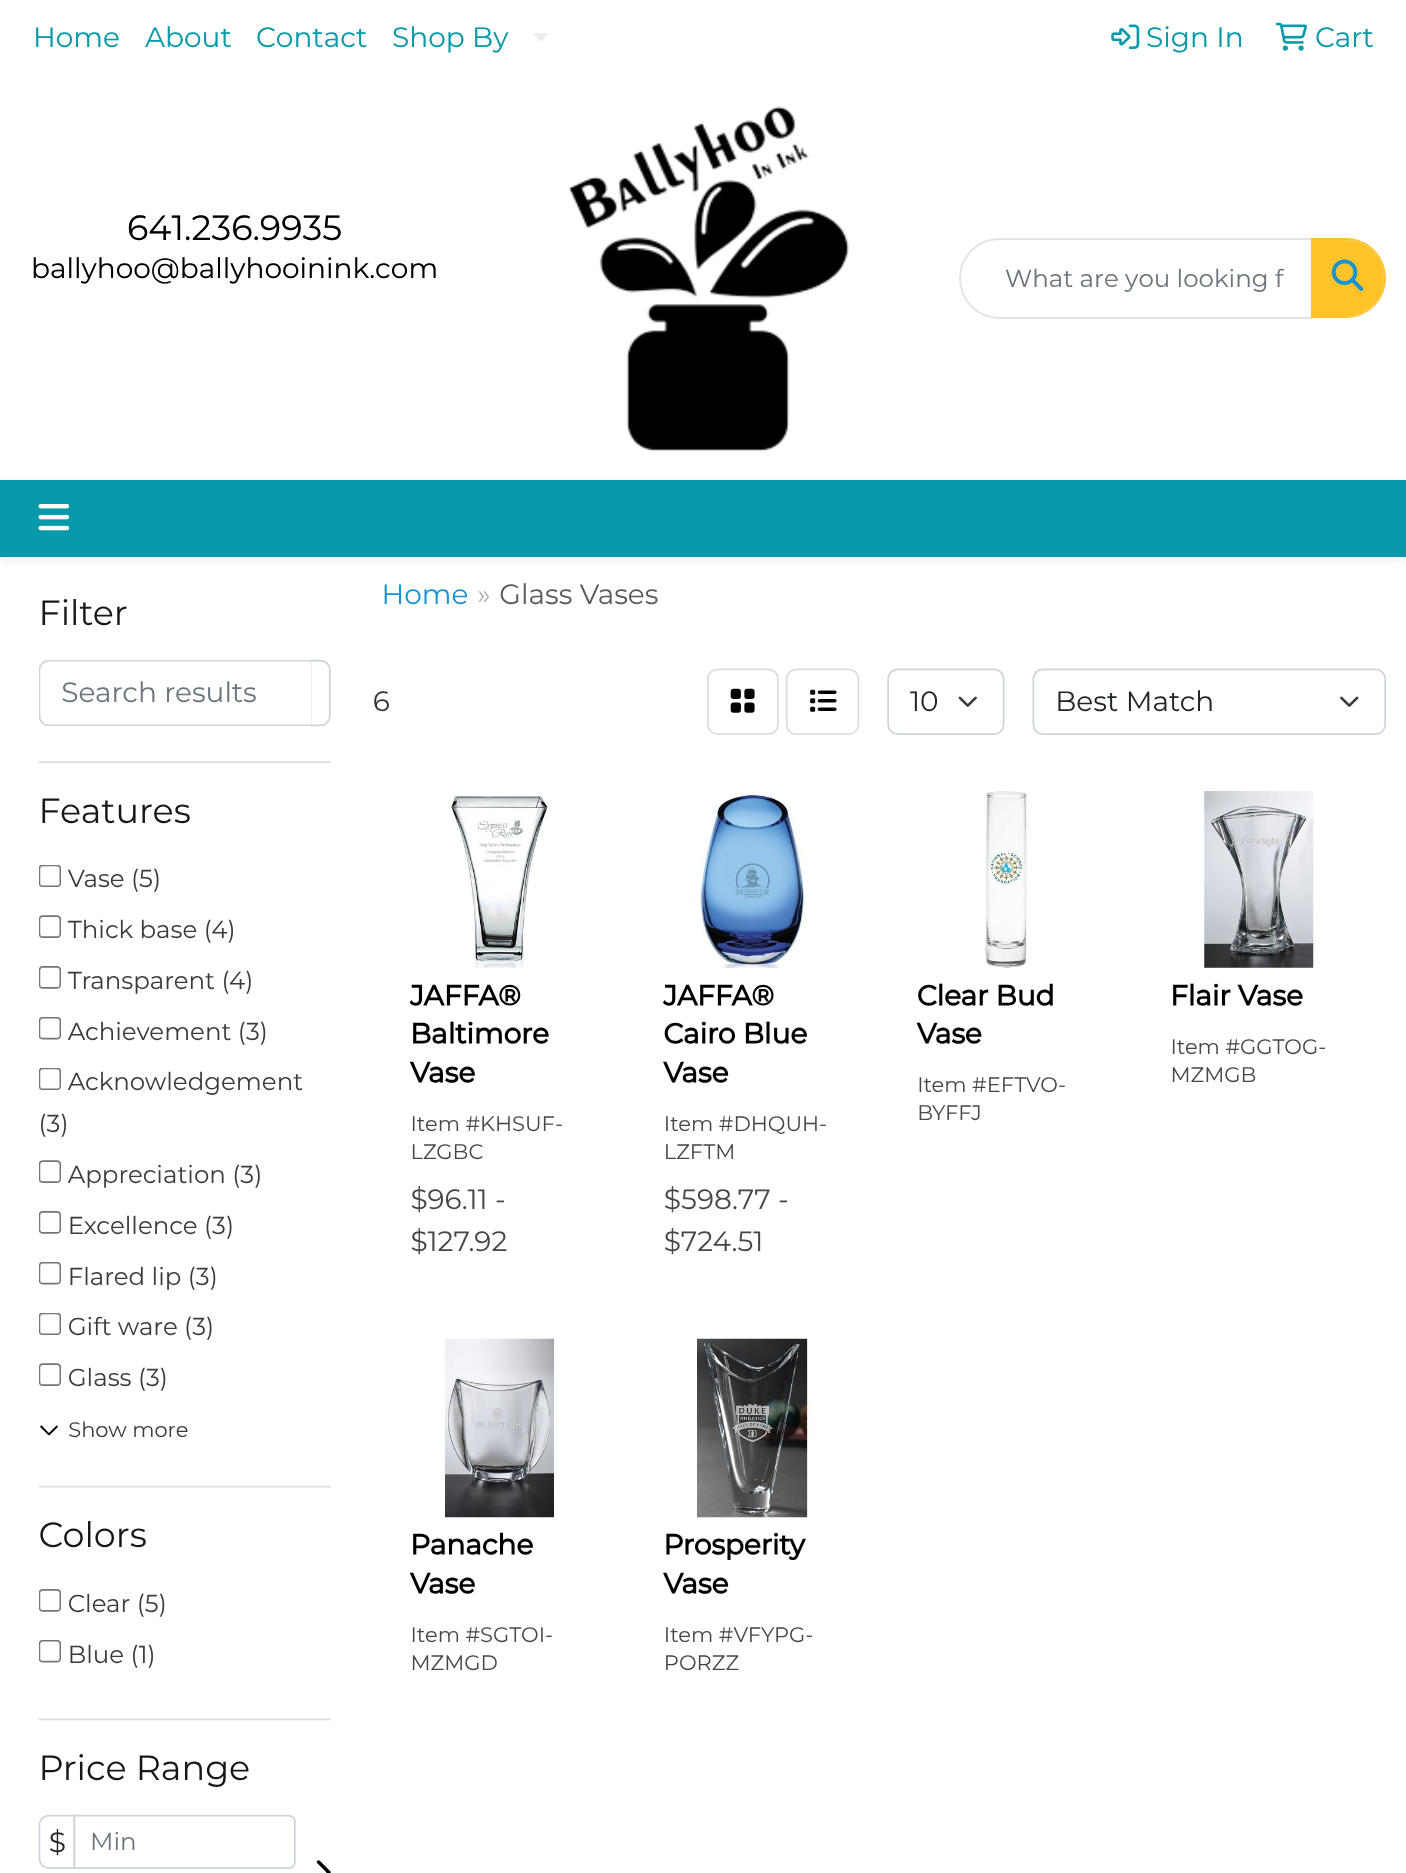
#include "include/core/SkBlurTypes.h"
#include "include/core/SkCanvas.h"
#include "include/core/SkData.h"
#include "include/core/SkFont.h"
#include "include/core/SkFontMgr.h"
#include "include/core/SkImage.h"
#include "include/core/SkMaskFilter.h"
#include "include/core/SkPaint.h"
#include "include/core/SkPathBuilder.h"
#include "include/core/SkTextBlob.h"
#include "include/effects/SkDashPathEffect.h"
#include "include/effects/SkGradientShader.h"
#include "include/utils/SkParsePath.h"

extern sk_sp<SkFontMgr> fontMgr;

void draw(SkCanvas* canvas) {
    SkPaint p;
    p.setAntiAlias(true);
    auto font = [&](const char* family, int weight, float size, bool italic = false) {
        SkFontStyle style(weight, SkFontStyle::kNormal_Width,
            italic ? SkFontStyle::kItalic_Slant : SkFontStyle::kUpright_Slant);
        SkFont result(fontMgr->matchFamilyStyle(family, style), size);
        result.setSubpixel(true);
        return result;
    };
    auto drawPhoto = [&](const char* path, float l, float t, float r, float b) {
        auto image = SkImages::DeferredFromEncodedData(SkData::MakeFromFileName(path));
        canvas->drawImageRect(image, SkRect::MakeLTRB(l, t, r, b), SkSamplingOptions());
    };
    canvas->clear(0xFFFFFFFF);
    auto font1 = font("Montserrat", 100, 28);
    p.setColor(0xFF0899AA);
    {
        const struct { const char* s; float x, y; } items[] = {
            {"Home", 33, 47},
            {"About", 145, 47},
            {"Contact", 256, 47},
            {"Shop By", 392, 47},
        };
        for (auto [s, x, y] : items) {
            canvas->drawString(s, x, y, font1, p);
        }
    }
    p.setColor(0xFFEEEEEE);
    canvas->drawPath(SkPathBuilder().moveTo(532, 33).lineTo(549.5f, 33).lineTo(541, 42).close().detach(), p);
    drawPhoto("media/1.png", 1111, 24, 1140, 49);
    p.setColor(0xFF0899AA);
    canvas->drawString("Sign In", 1146, 47, font1, p);
    drawPhoto("media/2.png", 1275, 22, 1307, 51);
    canvas->drawString("Cart", 1315, 47, font1, p);
    auto font2 = font("Montserrat", 100, 35);
    p.setColor(0xFF000000);
    canvas->drawString("641.236.9935", 127, 240, font2, p);
    canvas->drawString("ballyhoo@ballyhooinink.com", 31, 278, font1, p);
    drawPhoto("media/3.png", 568, 106, 849, 452);
    p.setStyle(SkPaint::kStroke_Style);
    p.setStrokeWidth(2);
    p.setColor(0xFFE4E4E4);
    canvas->drawPath(SkPathBuilder().moveTo(999.5f, 239).lineTo(1312, 239).lineTo(1312, 318).lineTo(999.5f, 318).cubicTo(977.5f, 318, 960, 300.5f, 960, 278.5f).cubicTo(960, 256.5f, 977.5f, 239, 999.5f, 239).close().detach(), p);
    auto font3 = font("Montserrat", 100, 24.5f);
    p.setStyle(SkPaint::kFill_Style);
    p.setColor(0xFF6C757D);
    canvas->drawString("What are you looking f", 1005, 287, font3, p);
    p.setColor(0xFFFFC32A);
    canvas->drawPath(SkPathBuilder().moveTo(1311, 240).lineTo(1345.5f, 240).cubicTo(1367, 240, 1384, 257, 1384, 278.5f).cubicTo(1384, 300, 1367, 317, 1345.5f, 317).lineTo(1311, 317).close().detach(), p);
    canvas->drawPath(SkPathBuilder(SkPathFillType::kEvenOdd).moveTo(1311, 238).lineTo(1346, 238).cubicTo(1368, 238, 1386, 256, 1386, 278).cubicTo(1386, 300, 1368, 318, 1346, 318).lineTo(1311, 318).close().moveTo(1311, 240).lineTo(1346, 240).cubicTo(1367, 240, 1384, 257, 1384, 278).cubicTo(1384, 300, 1367, 317, 1346, 317).lineTo(1311, 317).close().detach(), p);
    drawPhoto("media/4.png", 1331, 259, 1364, 291);
    p.setColor(0x12000000);
    p.setMaskFilter(SkMaskFilter::MakeBlur(kNormal_SkBlurStyle, 3.5f));
    canvas->drawRect(SkRect::MakeLTRB(0, 483, 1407, 560), p);
    p.setMaskFilter(nullptr);
    p.setColor(0xFF0899AA);
    canvas->drawRect(SkRect::MakeLTRB(0, 480, 1406, 557), p);
    drawPhoto("media/5.png", 38, 504, 70, 531);
    drawPhoto("media/6.png", 38, 583, 1386, 1873);
}
